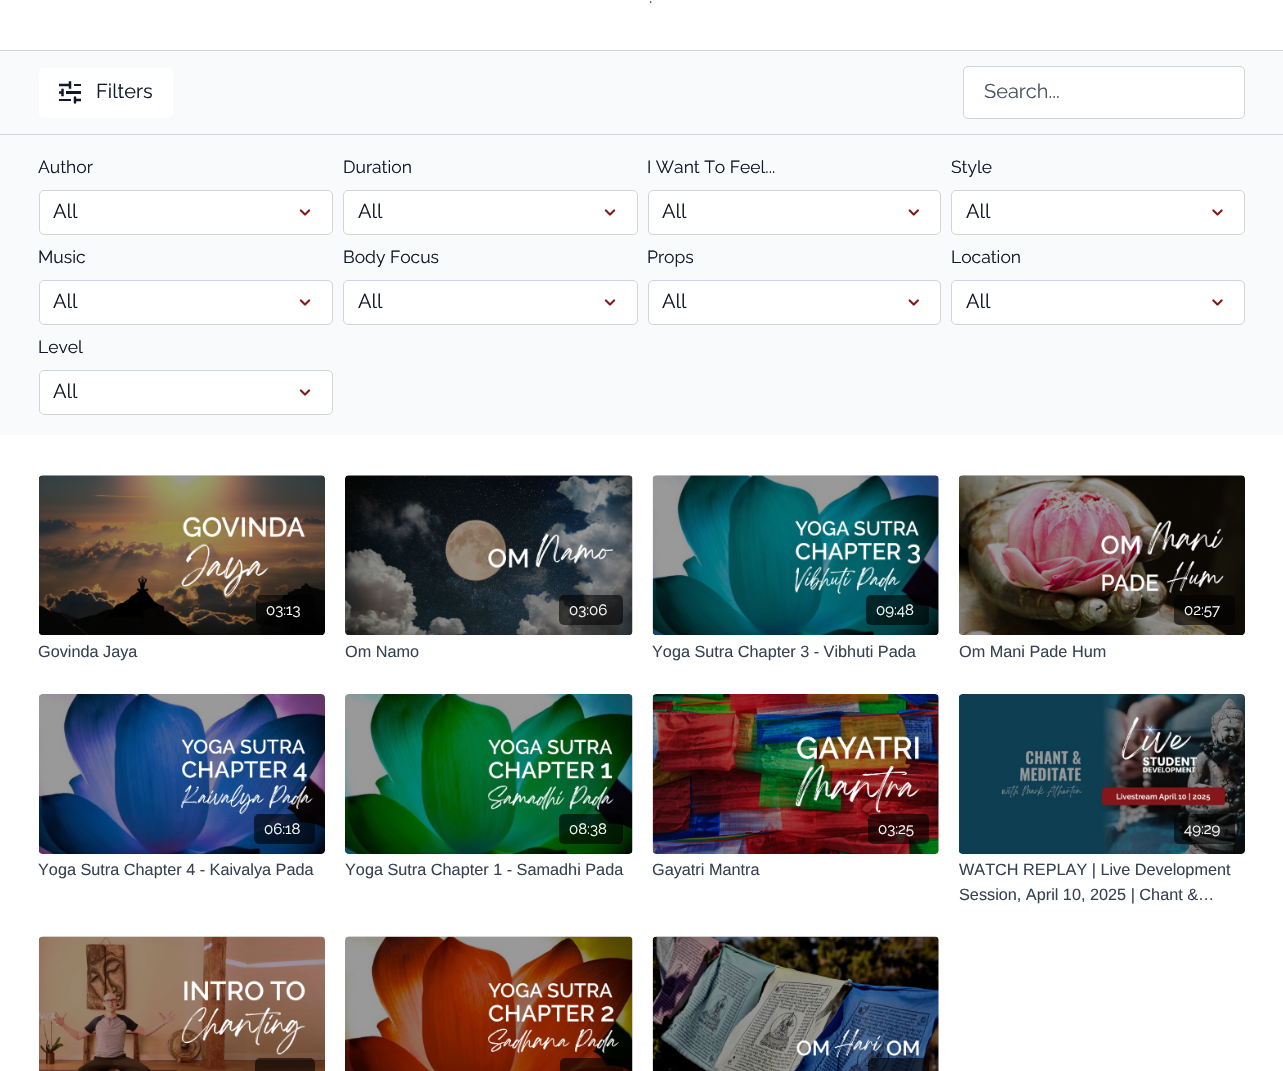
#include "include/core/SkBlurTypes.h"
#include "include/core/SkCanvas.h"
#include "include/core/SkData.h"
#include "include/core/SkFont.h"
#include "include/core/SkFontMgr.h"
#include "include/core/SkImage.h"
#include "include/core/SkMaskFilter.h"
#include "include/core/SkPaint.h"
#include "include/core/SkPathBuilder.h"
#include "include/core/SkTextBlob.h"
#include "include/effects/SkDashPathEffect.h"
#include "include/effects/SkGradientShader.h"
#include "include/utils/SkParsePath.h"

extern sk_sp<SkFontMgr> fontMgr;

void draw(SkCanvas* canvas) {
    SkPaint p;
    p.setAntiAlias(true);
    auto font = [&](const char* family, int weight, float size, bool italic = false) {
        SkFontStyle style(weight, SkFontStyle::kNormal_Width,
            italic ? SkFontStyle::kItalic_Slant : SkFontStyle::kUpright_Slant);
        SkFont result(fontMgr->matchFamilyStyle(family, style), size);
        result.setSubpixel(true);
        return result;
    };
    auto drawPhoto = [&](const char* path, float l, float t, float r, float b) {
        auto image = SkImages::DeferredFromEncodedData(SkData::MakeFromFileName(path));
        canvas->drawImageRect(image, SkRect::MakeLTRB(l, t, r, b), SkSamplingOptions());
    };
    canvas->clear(0xFFFFFFFF);
    p.setColor(0xFFD1D5DB);
    canvas->drawRect(SkRect::MakeLTRB(0, 50, 1283, 51), p);
    auto font1 = font("Raleway", 400, 17.5f);
    p.setColor(0xFF831719);
    canvas->drawString(".", 649, 3, font1, p);
    p.setColor(0xFFF9FAFB);
    canvas->drawRect(SkRect::MakeLTRB(0, 51, 1283, 435), p);
    p.setColor(0xFFD1D5DB);
    canvas->drawRect(SkRect::MakeLTRB(0, 134, 1283, 135), p);
    p.setColor(0xFFFFFFFF);
    canvas->drawRoundRect(SkRect::MakeLTRB(39, 68, 173, 118), 5, 5, p);
    drawPhoto("media/1.png", 59, 81, 81, 104);
    auto font2 = font("Raleway", 400, 20);
    p.setColor(0xFF111827);
    canvas->drawString("Filters", 96, 98, font2, p);
    p.setColor(0xFFFFFFFF);
    canvas->drawRoundRect(SkRect::MakeLTRB(963.5f, 66.5f, 1244.5f, 118.5f), 4.5f, 4.5f, p);
    p.setStyle(SkPaint::kStroke_Style);
    p.setStrokeWidth(1);
    p.setColor(0xFFD1D5DB);
    canvas->drawRoundRect(SkRect::MakeLTRB(963.5f, 66.5f, 1244.5f, 118.5f), 4.5f, 4.5f, p);
    p.setStyle(SkPaint::kFill_Style);
    p.setColor(0xFF4B5563);
    canvas->drawString("Search...", 984, 98, font2, p);
    p.setColor(0xFF111827);
    canvas->drawString("Author", 38, 173, font1, p);
    p.setColor(0xFFFFFFFF);
    canvas->drawRoundRect(SkRect::MakeLTRB(39, 190, 333, 235), 5, 5, p);
    drawPhoto("media/2.png", 299, 209, 311, 216);
    p.setStyle(SkPaint::kStroke_Style);
    p.setColor(0xFFD1D5DB);
    canvas->drawRoundRect(SkRect::MakeLTRB(39.5f, 190.5f, 332.5f, 234.5f), 4.5f, 4.5f, p);
    p.setStyle(SkPaint::kFill_Style);
    p.setColor(0xFF111827);
    canvas->drawString("All", 53, 218, font2, p);
    canvas->drawString("Duration", 343, 173, font1, p);
    p.setColor(0xFFFFFFFF);
    canvas->drawRoundRect(SkRect::MakeLTRB(343, 190, 638, 235), 5, 5, p);
    drawPhoto("media/2.png", 604, 209, 616, 216);
    p.setStyle(SkPaint::kStroke_Style);
    p.setColor(0xFFD1D5DB);
    canvas->drawRoundRect(SkRect::MakeLTRB(343.5f, 190.5f, 637.5f, 234.5f), 4.5f, 4.5f, p);
    p.setStyle(SkPaint::kFill_Style);
    p.setColor(0xFF111827);
    canvas->drawString("All", 358, 218, font2, p);
    canvas->drawString("I Want To Feel...", 647, 173, font1, p);
    p.setColor(0xFFFFFFFF);
    canvas->drawRoundRect(SkRect::MakeLTRB(648, 190, 941, 235), 5, 5, p);
    drawPhoto("media/3.png", 908, 209, 919, 216);
    p.setStyle(SkPaint::kStroke_Style);
    p.setColor(0xFFD1D5DB);
    canvas->drawRoundRect(SkRect::MakeLTRB(648.5f, 190.5f, 940.5f, 234.5f), 4.5f, 4.5f, p);
    p.setStyle(SkPaint::kFill_Style);
    p.setColor(0xFF111827);
    canvas->drawString("All", 662, 218, font2, p);
    canvas->drawString("Style", 951, 173, font1, p);
    p.setColor(0xFFFFFFFF);
    canvas->drawRoundRect(SkRect::MakeLTRB(951, 190, 1245, 235), 5, 5, p);
    drawPhoto("media/4.png", 1212, 209, 1223, 216);
    p.setStyle(SkPaint::kStroke_Style);
    p.setColor(0xFFD1D5DB);
    canvas->drawRoundRect(SkRect::MakeLTRB(951.5f, 190.5f, 1244.5f, 234.5f), 4.5f, 4.5f, p);
    p.setStyle(SkPaint::kFill_Style);
    p.setColor(0xFF111827);
    canvas->drawString("All", 966, 218, font2, p);
    canvas->drawString("Music", 38, 263, font1, p);
    p.setColor(0xFFFFFFFF);
    canvas->drawRoundRect(SkRect::MakeLTRB(39, 280, 333, 325), 5, 5, p);
    drawPhoto("media/2.png", 299, 299, 311, 306);
    p.setStyle(SkPaint::kStroke_Style);
    p.setColor(0xFFD1D5DB);
    canvas->drawRoundRect(SkRect::MakeLTRB(39.5f, 280.5f, 332.5f, 324.5f), 4.5f, 4.5f, p);
    p.setStyle(SkPaint::kFill_Style);
    p.setColor(0xFF111827);
    canvas->drawString("All", 53, 308, font2, p);
    canvas->drawString("Body Focus", 343, 263, font1, p);
    p.setColor(0xFFFFFFFF);
    canvas->drawRoundRect(SkRect::MakeLTRB(343, 280, 638, 325), 5, 5, p);
    drawPhoto("media/2.png", 604, 299, 616, 306);
    p.setStyle(SkPaint::kStroke_Style);
    p.setColor(0xFFD1D5DB);
    canvas->drawRoundRect(SkRect::MakeLTRB(343.5f, 280.5f, 637.5f, 324.5f), 4.5f, 4.5f, p);
    p.setStyle(SkPaint::kFill_Style);
    p.setColor(0xFF111827);
    canvas->drawString("All", 358, 308, font2, p);
    canvas->drawString("Props", 647, 263, font1, p);
    p.setColor(0xFFFFFFFF);
    canvas->drawRoundRect(SkRect::MakeLTRB(648, 280, 941, 325), 5, 5, p);
    drawPhoto("media/3.png", 908, 299, 919, 306);
    p.setStyle(SkPaint::kStroke_Style);
    p.setColor(0xFFD1D5DB);
    canvas->drawRoundRect(SkRect::MakeLTRB(648.5f, 280.5f, 940.5f, 324.5f), 4.5f, 4.5f, p);
    p.setStyle(SkPaint::kFill_Style);
    p.setColor(0xFF111827);
    canvas->drawString("All", 662, 308, font2, p);
    canvas->drawString("Location", 951, 263, font1, p);
    p.setColor(0xFFFFFFFF);
    canvas->drawRoundRect(SkRect::MakeLTRB(951, 280, 1245, 325), 5, 5, p);
    drawPhoto("media/4.png", 1212, 299, 1223, 306);
    p.setStyle(SkPaint::kStroke_Style);
    p.setColor(0xFFD1D5DB);
    canvas->drawRoundRect(SkRect::MakeLTRB(951.5f, 280.5f, 1244.5f, 324.5f), 4.5f, 4.5f, p);
    p.setStyle(SkPaint::kFill_Style);
    p.setColor(0xFF111827);
    canvas->drawString("All", 966, 308, font2, p);
    canvas->drawString("Level", 38, 353, font1, p);
    p.setColor(0xFFFFFFFF);
    canvas->drawRoundRect(SkRect::MakeLTRB(39, 370, 333, 415), 5, 5, p);
    drawPhoto("media/2.png", 299, 389, 311, 396);
    p.setStyle(SkPaint::kStroke_Style);
    p.setColor(0xFFD1D5DB);
    canvas->drawRoundRect(SkRect::MakeLTRB(39.5f, 370.5f, 332.5f, 414.5f), 4.5f, 4.5f, p);
    p.setStyle(SkPaint::kFill_Style);
    p.setColor(0xFF111827);
    canvas->drawString("All", 53, 398, font2, p);
    {
        const SkColor colors[] = {0xFFDEDEDE, 0xFFE0E0E0, 0xFFE3E3E3};
        const float stops[] = {0.08f, 0.18f, 0.33f};
        const SkPoint ends[] = {{39, 555}, {325, 555}};
        p.setShader(SkGradientShader::MakeLinear(ends, colors, stops, 3, SkTileMode::kClamp));
        p.setAlpha(255);
    }
    canvas->drawRoundRect(SkRect::MakeLTRB(39, 475, 325, 635), 5, 5, p);
    drawPhoto("media/5.png", 39, 475, 325, 635);
    p.setShader(nullptr);
    p.setColor(0x99000000);
    canvas->drawRoundRect(SkRect::MakeLTRB(256, 595, 315, 625), 5, 5, p);
    auto font3 = font("Raleway", 400, 15);
    p.setColor(0xFFFFFFFF);
    canvas->drawString("03:13", 266, 615, font3, p);
    auto font4 = font("Liberation Sans", 400, 16.25f);
    p.setColor(0xFF374151);
    canvas->drawString("Govinda Jaya", 38, 657, font4, p);
    {
        const SkColor colors[] = {0xFFDEDEDE, 0xFFE0E0E0, 0xFFE3E3E3};
        const float stops[] = {0.08f, 0.18f, 0.33f};
        const SkPoint ends[] = {{345, 555}, {633, 555}};
        p.setShader(SkGradientShader::MakeLinear(ends, colors, stops, 3, SkTileMode::kClamp));
        p.setAlpha(255);
    }
    canvas->drawRoundRect(SkRect::MakeLTRB(345, 475, 633, 635), 5, 5, p);
    drawPhoto("media/6.png", 345, 475, 633, 635);
    p.setShader(nullptr);
    p.setColor(0x99000000);
    canvas->drawRoundRect(SkRect::MakeLTRB(559, 595, 623, 625), 5, 5, p);
    p.setColor(0xFFFFFFFF);
    canvas->drawString("03:06", 569, 615, font3, p);
    p.setColor(0xFF374151);
    canvas->drawString("Om Namo", 345, 657, font4, p);
    {
        const SkColor colors[] = {0xFFDEDEDE, 0xFFE0E0E0, 0xFFE3E3E3};
        const float stops[] = {0.08f, 0.18f, 0.33f};
        const SkPoint ends[] = {{653, 555}, {939, 555}};
        p.setShader(SkGradientShader::MakeLinear(ends, colors, stops, 3, SkTileMode::kClamp));
        p.setAlpha(255);
    }
    canvas->drawRoundRect(SkRect::MakeLTRB(653, 475, 939, 635), 5, 5, p);
    drawPhoto("media/7.png", 652, 475, 939, 635);
    p.setShader(nullptr);
    p.setColor(0x99000000);
    canvas->drawRoundRect(SkRect::MakeLTRB(866, 595, 929, 625), 5, 5, p);
    p.setColor(0xFFFFFFFF);
    canvas->drawString("09:48", 876, 615, font3, p);
    p.setColor(0xFF374151);
    canvas->drawString("Yoga Sutra Chapter 3 - Vibhuti Pada", 652, 657, font4, p);
    {
        const SkColor colors[] = {0xFFDEDEDE, 0xFFE0E0E0, 0xFFE3E3E3};
        const float stops[] = {0.08f, 0.18f, 0.33f};
        const SkPoint ends[] = {{959, 555}, {1245, 555}};
        p.setShader(SkGradientShader::MakeLinear(ends, colors, stops, 3, SkTileMode::kClamp));
        p.setAlpha(255);
    }
    canvas->drawRoundRect(SkRect::MakeLTRB(959, 475, 1245, 635), 5, 5, p);
    drawPhoto("media/8.png", 959, 475, 1245, 635);
    p.setShader(nullptr);
    p.setColor(0x99000000);
    canvas->drawRoundRect(SkRect::MakeLTRB(1174, 595, 1235, 625), 5, 5, p);
    p.setColor(0xFFFFFFFF);
    canvas->drawString("02:57", 1184, 615, font3, p);
    p.setColor(0xFF374151);
    canvas->drawString("Om Mani Pade Hum", 959, 657, font4, p);
    drawPhoto("media/9.png", 39, 694, 325, 854);
    p.setColor(0x99000000);
    canvas->drawRoundRect(SkRect::MakeLTRB(254, 814, 315, 844), 5, 5, p);
    p.setColor(0xFFFFFFFF);
    canvas->drawString("06:18", 264, 834, font3, p);
    p.setColor(0xFF374151);
    canvas->drawString("Yoga Sutra Chapter 4 - Kaivalya Pada", 38, 875, font4, p);
    {
        const SkColor colors[] = {0xFFDEDEDE, 0xFFE0E0E0, 0xFFE3E3E3};
        const float stops[] = {0.08f, 0.18f, 0.33f};
        const SkPoint ends[] = {{345, 774}, {633, 774}};
        p.setShader(SkGradientShader::MakeLinear(ends, colors, stops, 3, SkTileMode::kClamp));
        p.setAlpha(255);
    }
    canvas->drawRoundRect(SkRect::MakeLTRB(345, 694, 633, 854), 5, 5, p);
    drawPhoto("media/10.png", 345, 694, 633, 854);
    p.setShader(nullptr);
    p.setColor(0x99000000);
    canvas->drawRoundRect(SkRect::MakeLTRB(559, 814, 623, 844), 5, 5, p);
    p.setColor(0xFFFFFFFF);
    canvas->drawString("08:38", 569, 834, font3, p);
    p.setColor(0xFF374151);
    canvas->drawString("Yoga Sutra Chapter 1 - Samadhi Pada", 345, 875, font4, p);
    {
        const SkColor colors[] = {0xFFDEDEDE, 0xFFE0E0E0, 0xFFE3E3E3};
        const float stops[] = {0.08f, 0.18f, 0.33f};
        const SkPoint ends[] = {{653, 774}, {939, 774}};
        p.setShader(SkGradientShader::MakeLinear(ends, colors, stops, 3, SkTileMode::kClamp));
        p.setAlpha(255);
    }
    canvas->drawRoundRect(SkRect::MakeLTRB(653, 694, 939, 854), 5, 5, p);
    drawPhoto("media/11.png", 652, 694, 939, 854);
    p.setShader(nullptr);
    p.setColor(0x99000000);
    canvas->drawRoundRect(SkRect::MakeLTRB(868, 814, 929, 844), 5, 5, p);
    p.setColor(0xFFFFFFFF);
    canvas->drawString("03:25", 878, 834, font3, p);
    canvas->save();
    canvas->clipRect(SkRect::MakeLTRB(653, 858, 939, 883));
    p.setColor(0xFF374151);
    canvas->drawString("Gayatri Mantra", 652, 875, font4, p);
    canvas->restore();
    drawPhoto("media/12.png", 959, 694, 1245, 854);
    p.setColor(0x99000000);
    canvas->drawRoundRect(SkRect::MakeLTRB(1174, 814, 1235, 844), 5, 5, p);
    p.setColor(0xFFFFFFFF);
    canvas->drawString("49:29", 1184, 834, font3, p);
    p.setColor(0xFF374151);
    canvas->drawString("WATCH REPLAY | Live Development", 959, 875, font4, p);
    canvas->drawString("Session, April 10, 2025 | Chant &…", 959, 900, font4, p);
    {
        const SkColor colors[] = {0xFFDEDEDE, 0xFFE0E0E0, 0xFFE3E3E3};
        const float stops[] = {0.08f, 0.18f, 0.33f};
        const SkPoint ends[] = {{39, 1017}, {325, 1017}};
        p.setShader(SkGradientShader::MakeLinear(ends, colors, stops, 3, SkTileMode::kClamp));
        p.setAlpha(255);
    }
    canvas->drawRoundRect(SkRect::MakeLTRB(39, 936, 325, 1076), 5, 5, p);
    drawPhoto("media/13.png", 39, 936, 325, 1071);
    p.setShader(nullptr);
    p.setColor(0x99000000);
    canvas->drawRoundRect(SkRect::MakeLTRB(255, 1058, 315, 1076), 5, 5, p);
    {
        const SkColor colors[] = {0xFFDEDEDE, 0xFFE0E0E0, 0xFFE3E3E3};
        const float stops[] = {0.08f, 0.18f, 0.33f};
        const SkPoint ends[] = {{345, 1017}, {633, 1017}};
        p.setShader(SkGradientShader::MakeLinear(ends, colors, stops, 3, SkTileMode::kClamp));
        p.setAlpha(255);
    }
    canvas->drawRoundRect(SkRect::MakeLTRB(345, 936, 633, 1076), 5, 5, p);
    drawPhoto("media/14.png", 345, 936, 633, 1071);
    p.setShader(nullptr);
    p.setColor(0x99000000);
    canvas->drawRoundRect(SkRect::MakeLTRB(560, 1058, 623, 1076), 5, 5, p);
    {
        const SkColor colors[] = {0xFFDEDEDE, 0xFFE0E0E0, 0xFFE3E3E3};
        const float stops[] = {0.08f, 0.18f, 0.33f};
        const SkPoint ends[] = {{653, 1017}, {939, 1017}};
        p.setShader(SkGradientShader::MakeLinear(ends, colors, stops, 3, SkTileMode::kClamp));
        p.setAlpha(255);
    }
    canvas->drawRoundRect(SkRect::MakeLTRB(653, 936, 939, 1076), 5, 5, p);
    drawPhoto("media/15.png", 652, 936, 939, 1071);
    p.setShader(nullptr);
    p.setColor(0x99000000);
    canvas->drawRoundRect(SkRect::MakeLTRB(868, 1058, 929, 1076), 5, 5, p);
}
